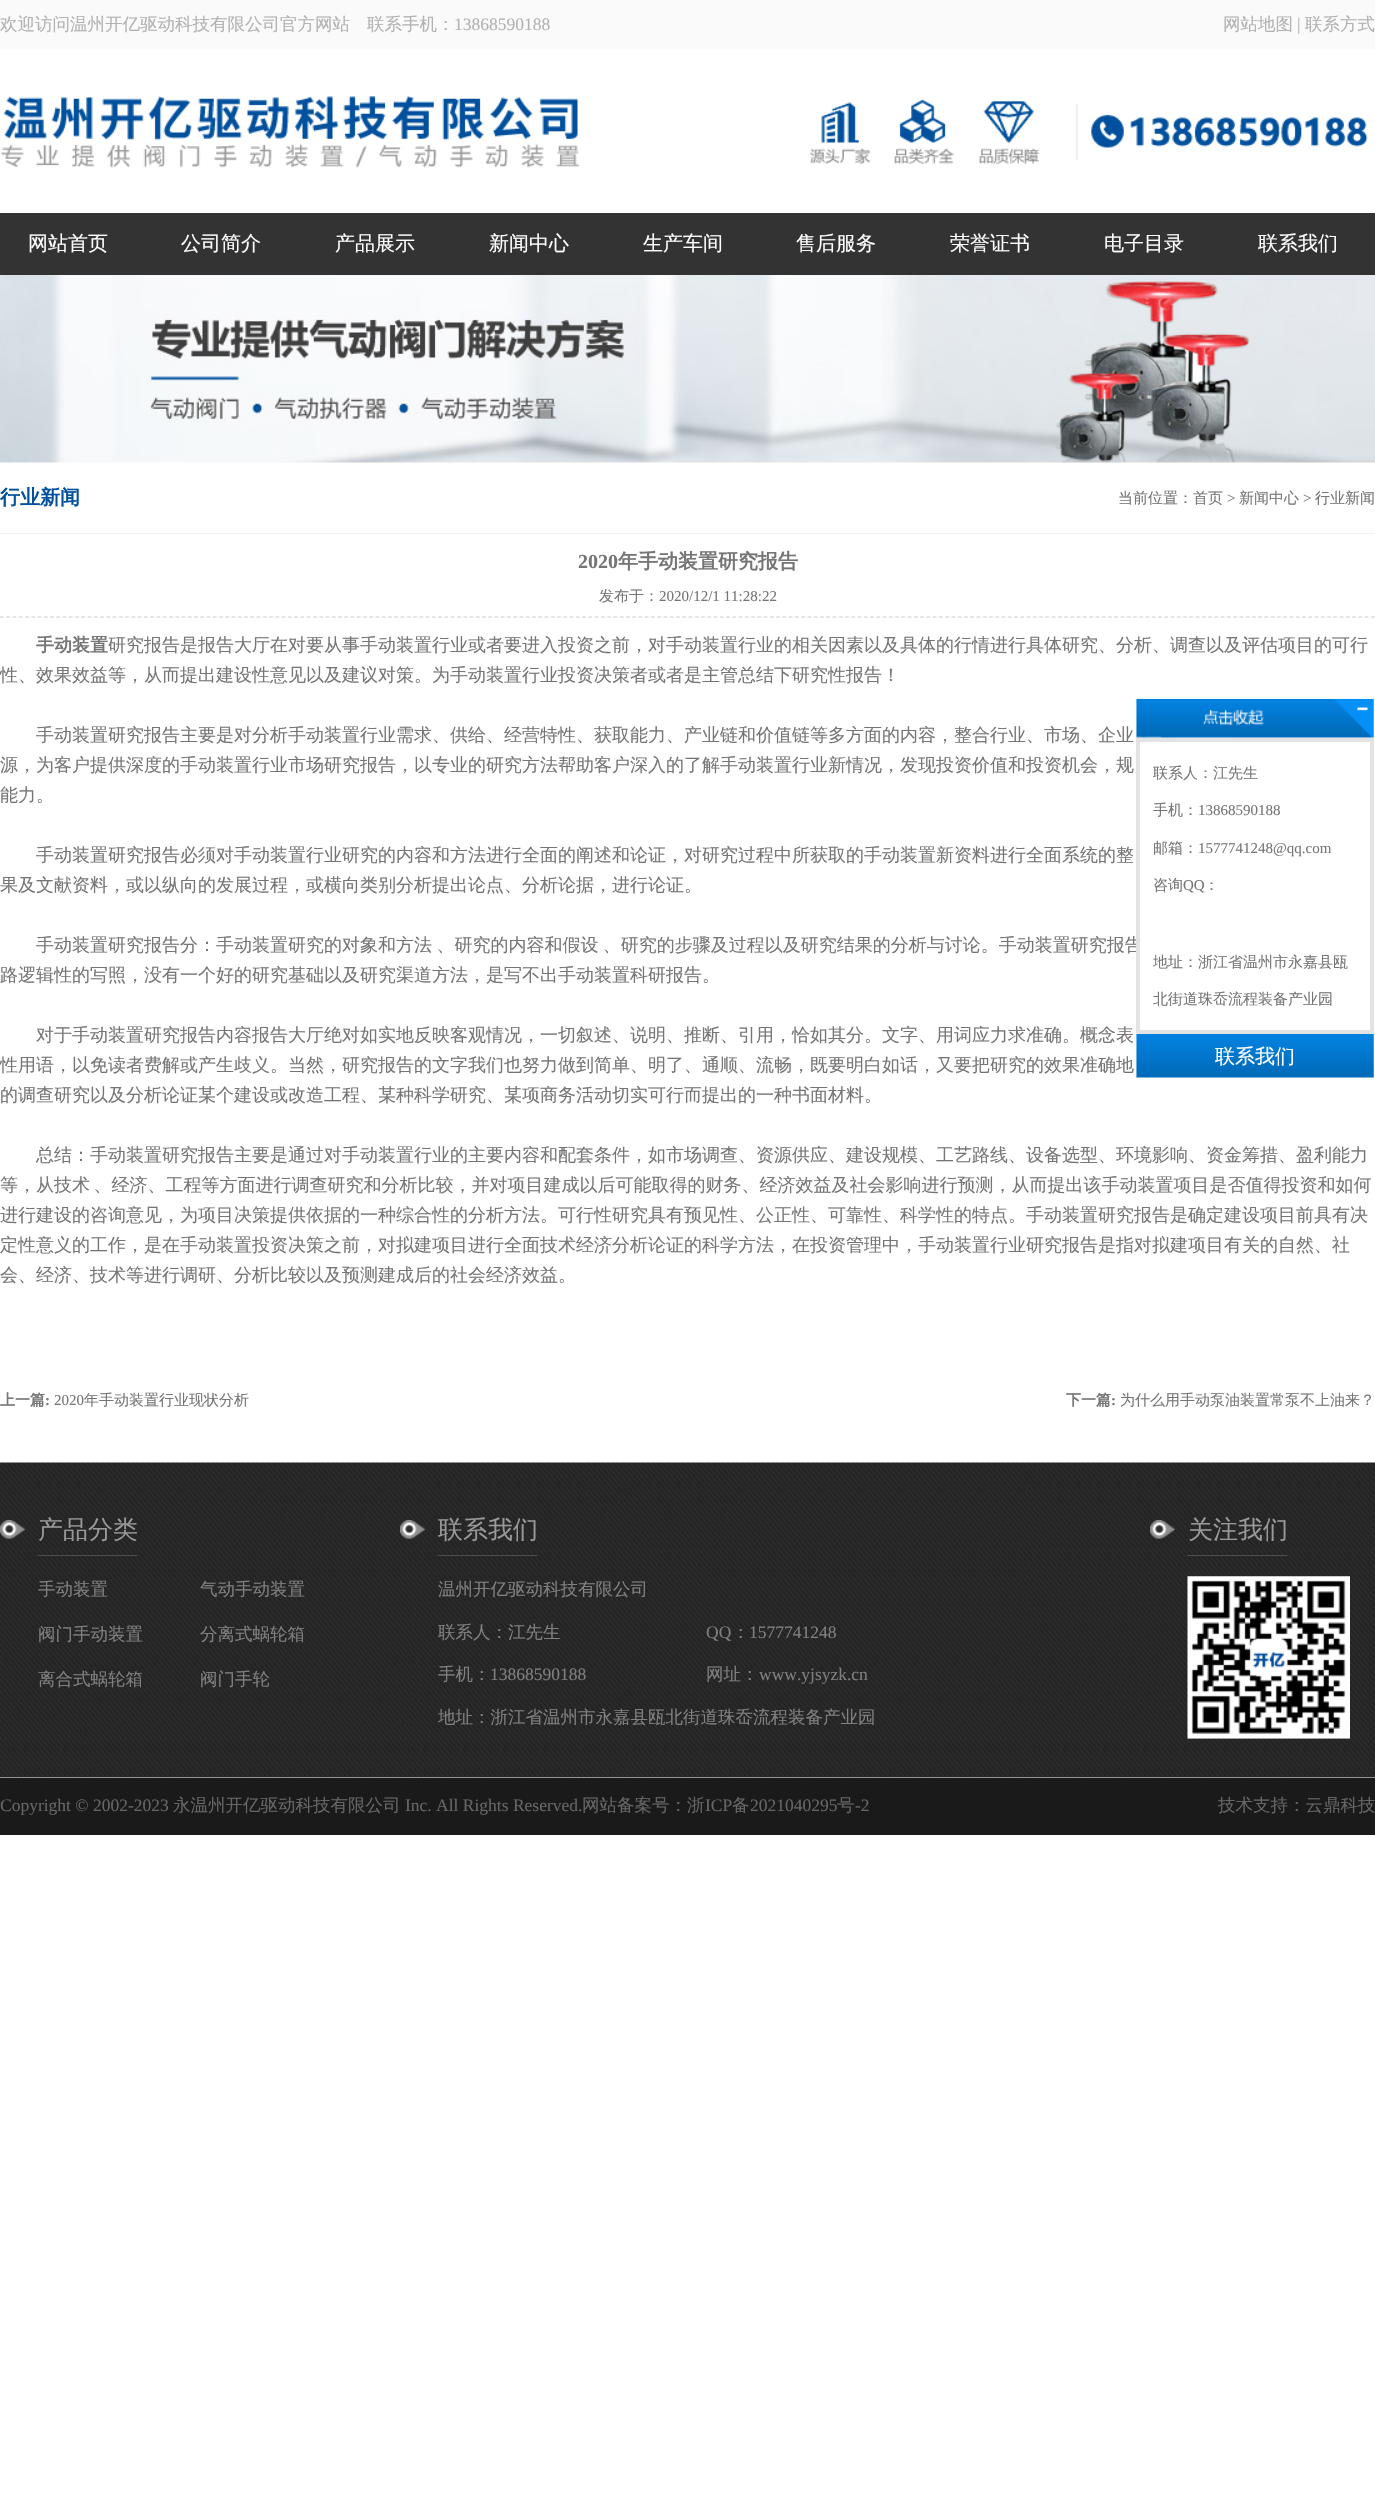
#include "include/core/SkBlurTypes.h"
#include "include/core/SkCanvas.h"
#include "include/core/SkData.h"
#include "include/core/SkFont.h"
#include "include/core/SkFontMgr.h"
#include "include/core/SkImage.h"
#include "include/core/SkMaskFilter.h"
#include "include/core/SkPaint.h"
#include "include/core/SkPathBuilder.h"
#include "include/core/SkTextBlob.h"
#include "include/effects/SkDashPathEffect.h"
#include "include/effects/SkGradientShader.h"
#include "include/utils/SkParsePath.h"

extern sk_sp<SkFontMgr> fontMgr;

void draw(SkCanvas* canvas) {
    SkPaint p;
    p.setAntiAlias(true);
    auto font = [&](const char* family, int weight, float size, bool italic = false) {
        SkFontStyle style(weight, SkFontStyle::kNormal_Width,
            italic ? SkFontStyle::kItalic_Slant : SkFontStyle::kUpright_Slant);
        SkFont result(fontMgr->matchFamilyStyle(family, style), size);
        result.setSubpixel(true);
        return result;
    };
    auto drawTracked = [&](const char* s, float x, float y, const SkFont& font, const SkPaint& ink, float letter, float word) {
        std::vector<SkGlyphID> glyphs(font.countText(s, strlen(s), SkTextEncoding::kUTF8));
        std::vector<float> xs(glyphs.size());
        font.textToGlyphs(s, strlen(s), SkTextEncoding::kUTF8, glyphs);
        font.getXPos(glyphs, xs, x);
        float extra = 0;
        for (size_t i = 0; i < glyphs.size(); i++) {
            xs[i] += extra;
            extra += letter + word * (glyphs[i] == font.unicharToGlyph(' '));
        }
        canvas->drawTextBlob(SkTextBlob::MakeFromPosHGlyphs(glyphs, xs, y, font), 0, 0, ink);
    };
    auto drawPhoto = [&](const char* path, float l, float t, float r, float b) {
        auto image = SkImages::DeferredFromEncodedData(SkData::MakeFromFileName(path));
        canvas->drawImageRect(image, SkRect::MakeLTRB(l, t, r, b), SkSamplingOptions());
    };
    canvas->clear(0xFFFFFFFF);
    p.setColor(0xFFFAFAFA);
    canvas->drawRect(SkRect::MakeLTRB(0, 0, 1375, 50), p);
    auto font1 = font("WenQuanYi Zen Hei", 500, 17.5f);
    p.setColor(0xFFB2B2B2);
    canvas->drawString("欢迎访问温州开亿驱动科技有限公司官方网站", 0, 30, font1, p);
    canvas->drawString("联系手机：", 367, 30, font1, p);
    auto font2 = font("Liberation Serif", 400, 17.5f);
    canvas->drawString("13868590188", 454, 30, font2, p);
    canvas->drawString("网站地图", 1223, 30, font1, p);
    canvas->drawString("|", 1297, 30, font2, p);
    canvas->drawString("联系方式", 1305, 30, font1, p);
    drawPhoto("media/1.png", 1, 96, 579, 168);
    drawPhoto("media/2.png", 810, 99, 1368, 164);
    p.setColor(0xFF333333);
    canvas->drawRect(SkRect::MakeLTRB(0, 213, 1375, 275), p);
    auto font3 = font("WenQuanYi Zen Hei", 500, 20);
    p.setColor(0xFFFFFFFF);
    {
        const struct { const char* s; float x, y; } items[] = {
            {"网站首页", 28, 250},
            {"公司简介", 181, 250},
            {"产品展示", 335, 250},
            {"新闻中心", 489, 250},
            {"生产车间", 643, 250},
            {"售后服务", 796, 250},
            {"荣誉证书", 950, 250},
            {"电子目录", 1104, 250},
            {"联系我们", 1258, 250},
        };
        for (auto [s, x, y] : items) {
            canvas->drawString(s, x, y, font3, p);
        }
    }
    drawPhoto("media/3.png", 0, 275, 1375, 463);
    p.setColor(0xFFF2F2F2);
    canvas->drawRect(SkRect::MakeLTRB(0, 533, 1375, 534), p);
    auto font4 = font("WenQuanYi Zen Hei", 700, 20);
    p.setColor(0xFF01509D);
    canvas->drawString("行业新闻", 0, 504, font4, p);
    auto font5 = font("WenQuanYi Zen Hei", 500, 15);
    p.setColor(0xFF757575);
    canvas->drawString("当前位置：首页", 1118, 503, font5, p);
    auto font6 = font("Liberation Serif", 400, 15);
    canvas->drawString(">", 1227, 503, font6, p);
    canvas->drawString("新闻中心", 1239, 503, font5, p);
    canvas->drawString(">", 1303, 503, font6, p);
    canvas->drawString("行业新闻", 1315, 503, font5, p);
    auto font7 = font("Liberation Serif", 700, 20);
    canvas->drawString("2020", 578, 568, font7, p);
    canvas->drawString("年手动装置研究报告", 618, 568, font4, p);
    p.setStyle(SkPaint::kStroke_Style);
    p.setStrokeWidth(1.2f);
    p.setColor(0xFFCCCCCC);
    p.setPathEffect(SkDashPathEffect::Make({{3.75f, 2.51f}}, 0));
    canvas->drawPath(SkPathBuilder().moveTo(0, 617).lineTo(1375, 617).detach(), p);
    p.setPathEffect(nullptr);
    p.setStyle(SkPaint::kFill_Style);
    p.setColor(0xFF757575);
    canvas->drawString("发布于：", 599, 601, font5, p);
    canvas->drawString("2020/12/1 11:28:22", 659, 601, font6, p);
    auto font8 = font("WenQuanYi Zen Hei", 700, 18);
    canvas->drawString("手动装置", 36, 651, font8, p);
    auto font9 = font("WenQuanYi Zen Hei", 500, 18);
    {
        const struct { const char* s; float x, y; } items[] = {
            {"研究报告是报告大厅在对要从事手动装置行业或者要进入投资之前，对手动装置行业的相关因素以及具体的行情进行具体研究、分析、调查以及评估项目的可行", 108, 651},
            {"性、效果效益等，从而提出建设性意见以及建议对策。为手动装置行业投资决策者或者是主管总结下研究性报告！", 0, 681},
            {"手动装置研究报告主要是对分析手动装置行业需求、供给、经营特性、获取能力、产业链和价值链等多方面的内容，整合行业、市场、企业", 36, 741},
            {"源，为客户提供深度的手动装置行业市场研究报告，以专业的研究方法帮助客户深入的了解手动装置行业新情况，发现投资价值和投资机会，规", 0, 771},
            {"能力。", 0, 801},
            {"手动装置研究报告必须对手动装置行业研究的内容和方法进行全面的阐述和论证，对研究过程中所获取的手动装置新资料进行全面系统的整", 36, 861},
            {"果及文献资料，或以纵向的发展过程，或横向类别分析提出论点、分析论据，进行论证。", 0, 891},
        };
        for (auto [s, x, y] : items) {
            canvas->drawString(s, x, y, font9, p);
        }
    }
    drawTracked("手动装置研究报告分：手动装置研究的对象和方法 、研究的内容和假设 、研究的步骤及过程以及研究结果的分析与讨论。手动装置研究报告", 36, 951, font9, p, 0, -1);
    {
        const struct { const char* s; float x, y; } items[] = {
            {"路逻辑性的写照，没有一个好的研究基础以及研究渠道方法，是写不出手动装置科研报告。", 0, 981},
            {"对于手动装置研究报告内容报告大厅绝对如实地反映客观情况，一切叙述、说明、推断、引用，恰如其分。文字、用词应力求准确。概念表", 36, 1041},
            {"性用语，以免读者费解或产生歧义。当然，研究报告的文字我们也努力做到简单、明了、通顺、流畅，既要明白如话，又要把研究的效果准确地", 0, 1071},
            {"的调查研究以及分析论证某个建设或改造工程、某种科学研究、某项商务活动切实可行而提出的一种书面材料。", 0, 1101},
            {"总结：手动装置研究报告主要是通过对手动装置行业的主要内容和配套条件，如市场调查、资源供应、建设规模、工艺路线、设备选型、环境影响、资金筹措、盈利能力", 36, 1161},
        };
        for (auto [s, x, y] : items) {
            canvas->drawString(s, x, y, font9, p);
        }
    }
    drawTracked("等，从技术 、经济、工程等方面进行调查研究和分析比较，并对项目建成以后可能取得的财务、经济效益及社会影响进行预测，从而提出该手动装置项目是否值得投资和如何", 0, 1191, font9, p, 0, -2);
    {
        const struct { const char* s; float x, y; } items[] = {
            {"进行建设的咨询意见，为项目决策提供依据的一种综合性的分析方法。可行性研究具有预见性、公正性、可靠性、科学性的特点。手动装置研究报告是确定建设项目前具有决", 0, 1221},
            {"定性意义的工作，是在手动装置投资决策之前，对拟建项目进行全面技术经济分析论证的科学方法，在投资管理中，手动装置行业研究报告是指对拟建项目有关的自然、社", 0, 1251},
            {"会、经济、技术等进行调研、分析比较以及预测建成后的社会经济效益。", 0, 1281},
        };
        for (auto [s, x, y] : items) {
            canvas->drawString(s, x, y, font9, p);
        }
    }
    auto font10 = font("WenQuanYi Zen Hei", 700, 15);
    canvas->drawString("上一篇", 0, 1405, font10, p);
    auto font11 = font("Liberation Serif", 700, 15);
    canvas->drawString(":", 45, 1405, font11, p);
    canvas->drawString("2020", 54, 1405, font6, p);
    canvas->drawString("年手动装置行业现状分析", 84, 1405, font5, p);
    canvas->drawString("下一篇", 1066, 1405, font10, p);
    canvas->drawString(":", 1111, 1405, font11, p);
    canvas->drawString("为什么用手动泵油装置常泵不上油来？", 1120, 1405, font5, p);
    drawPhoto("media/4.png", 1136, 698, 1374, 738);
    p.setColor(0xFFFFFFFF);
    canvas->drawRect(SkRect::MakeLTRB(1140, 943, 1142, 945), p);
    p.setStyle(SkPaint::kStroke_Style);
    p.setStrokeWidth(4);
    p.setColor(0xFFE3E3E3);
    canvas->drawRect(SkRect::MakeLTRB(1138, 740, 1372, 1032), p);
    p.setStyle(SkPaint::kFill_Style);
    p.setColor(0xFF757575);
    canvas->drawString("联系人：江先生", 1153, 778, font5, p);
    canvas->drawString("手机：", 1153, 815, font5, p);
    canvas->drawString("13868590188", 1198, 815, font6, p);
    canvas->drawString("邮箱：", 1153, 853, font5, p);
    canvas->drawString("1577741248@qq.com", 1198, 853, font6, p);
    canvas->drawString("咨询", 1153, 890, font5, p);
    canvas->drawString("QQ", 1183, 890, font6, p);
    {
        const struct { const char* s; float x, y; } items[] = {
            {"：", 1204, 890},
            {"地址：浙江省温州市永嘉县瓯", 1153, 967},
            {"北街道珠岙流程装备产业园", 1153, 1004},
        };
        for (auto [s, x, y] : items) {
            canvas->drawString(s, x, y, font5, p);
        }
    }
    drawPhoto("media/5.png", 1136, 1034, 1374, 1078);
    p.setColor(0xFFFFFFFF);
    canvas->drawString("联系我们", 1215, 1063, font3, p);
    drawPhoto("media/6.png", 0, 1462, 1375, 1778);
    drawPhoto("media/7.png", 0, 1520, 25, 1539);
    auto font12 = font("WenQuanYi Zen Hei", 500, 25);
    p.setColor(0xFF999999);
    canvas->drawString("产品分类", 38, 1538, font12, p);
    drawPhoto("media/8.png", 37, 1555, 138, 1557);
    p.setColor(0xFF808080);
    {
        const struct { const char* s; float x, y; } items[] = {
            {"手动装置", 38, 1595},
            {"气动手动装置", 200, 1595},
            {"阀门手动装置", 38, 1640},
            {"分离式蜗轮箱", 200, 1640},
            {"离合式蜗轮箱", 38, 1685},
            {"阀门手轮", 200, 1685},
        };
        for (auto [s, x, y] : items) {
            canvas->drawString(s, x, y, font1, p);
        }
    }
    drawPhoto("media/9.png", 400, 1520, 425, 1539);
    p.setColor(0xFF999999);
    canvas->drawString("联系我们", 438, 1538, font12, p);
    drawPhoto("media/10.png", 437, 1555, 538, 1557);
    p.setColor(0xFF808080);
    canvas->drawString("温州开亿驱动科技有限公司", 438, 1595, font1, p);
    canvas->save();
    canvas->clipRect(SkRect::MakeLTRB(438, 1568, 1150, 1738));
    canvas->drawString("联系人：江先生", 438, 1638, font1, p);
    canvas->restore();
    canvas->drawString("QQ", 706, 1638, font2, p);
    canvas->drawString("：", 732, 1638, font1, p);
    canvas->drawString("1577741248", 749, 1638, font2, p);
    canvas->drawString("手机：", 438, 1680, font1, p);
    canvas->drawString("13868590188", 490, 1680, font2, p);
    canvas->drawString("网址：", 706, 1680, font1, p);
    canvas->drawString("www.yjsyzk.cn", 759, 1680, font2, p);
    canvas->save();
    canvas->clipRect(SkRect::MakeLTRB(438, 1568, 1150, 1738));
    canvas->drawString("地址：浙江省温州市永嘉县瓯北街道珠岙流程装备产业园", 438, 1723, font1, p);
    canvas->restore();
    drawPhoto("media/11.png", 1150, 1520, 1175, 1539);
    p.setColor(0xFF999999);
    canvas->drawString("关注我们", 1188, 1538, font12, p);
    drawPhoto("media/10.png", 1187, 1555, 1288, 1557);
    drawPhoto("media/12.png", 1187, 1576, 1350, 1739);
    p.setColor(0xFF1A1A1A);
    canvas->drawRect(SkRect::MakeLTRB(0, 1778, 1375, 1835), p);
    p.setColor(0xFF666666);
    canvas->drawString("Copyright © 2002-2023", 0, 1811, font2, p);
    canvas->drawString("永温州开亿驱动科技有限公司", 173, 1811, font1, p);
    canvas->drawString("Inc. All Rights Reserved.", 405, 1811, font2, p);
    canvas->drawString("网站备案号：浙", 582, 1811, font1, p);
    canvas->drawString("ICP", 705, 1811, font2, p);
    canvas->drawString("备", 732, 1811, font1, p);
    canvas->drawString("2021040295", 750, 1811, font2, p);
    canvas->drawString("号", 837, 1811, font1, p);
    canvas->drawString("-2", 855, 1811, font2, p);
    canvas->drawString("技术支持：云鼎科技", 1218, 1811, font1, p);
}
